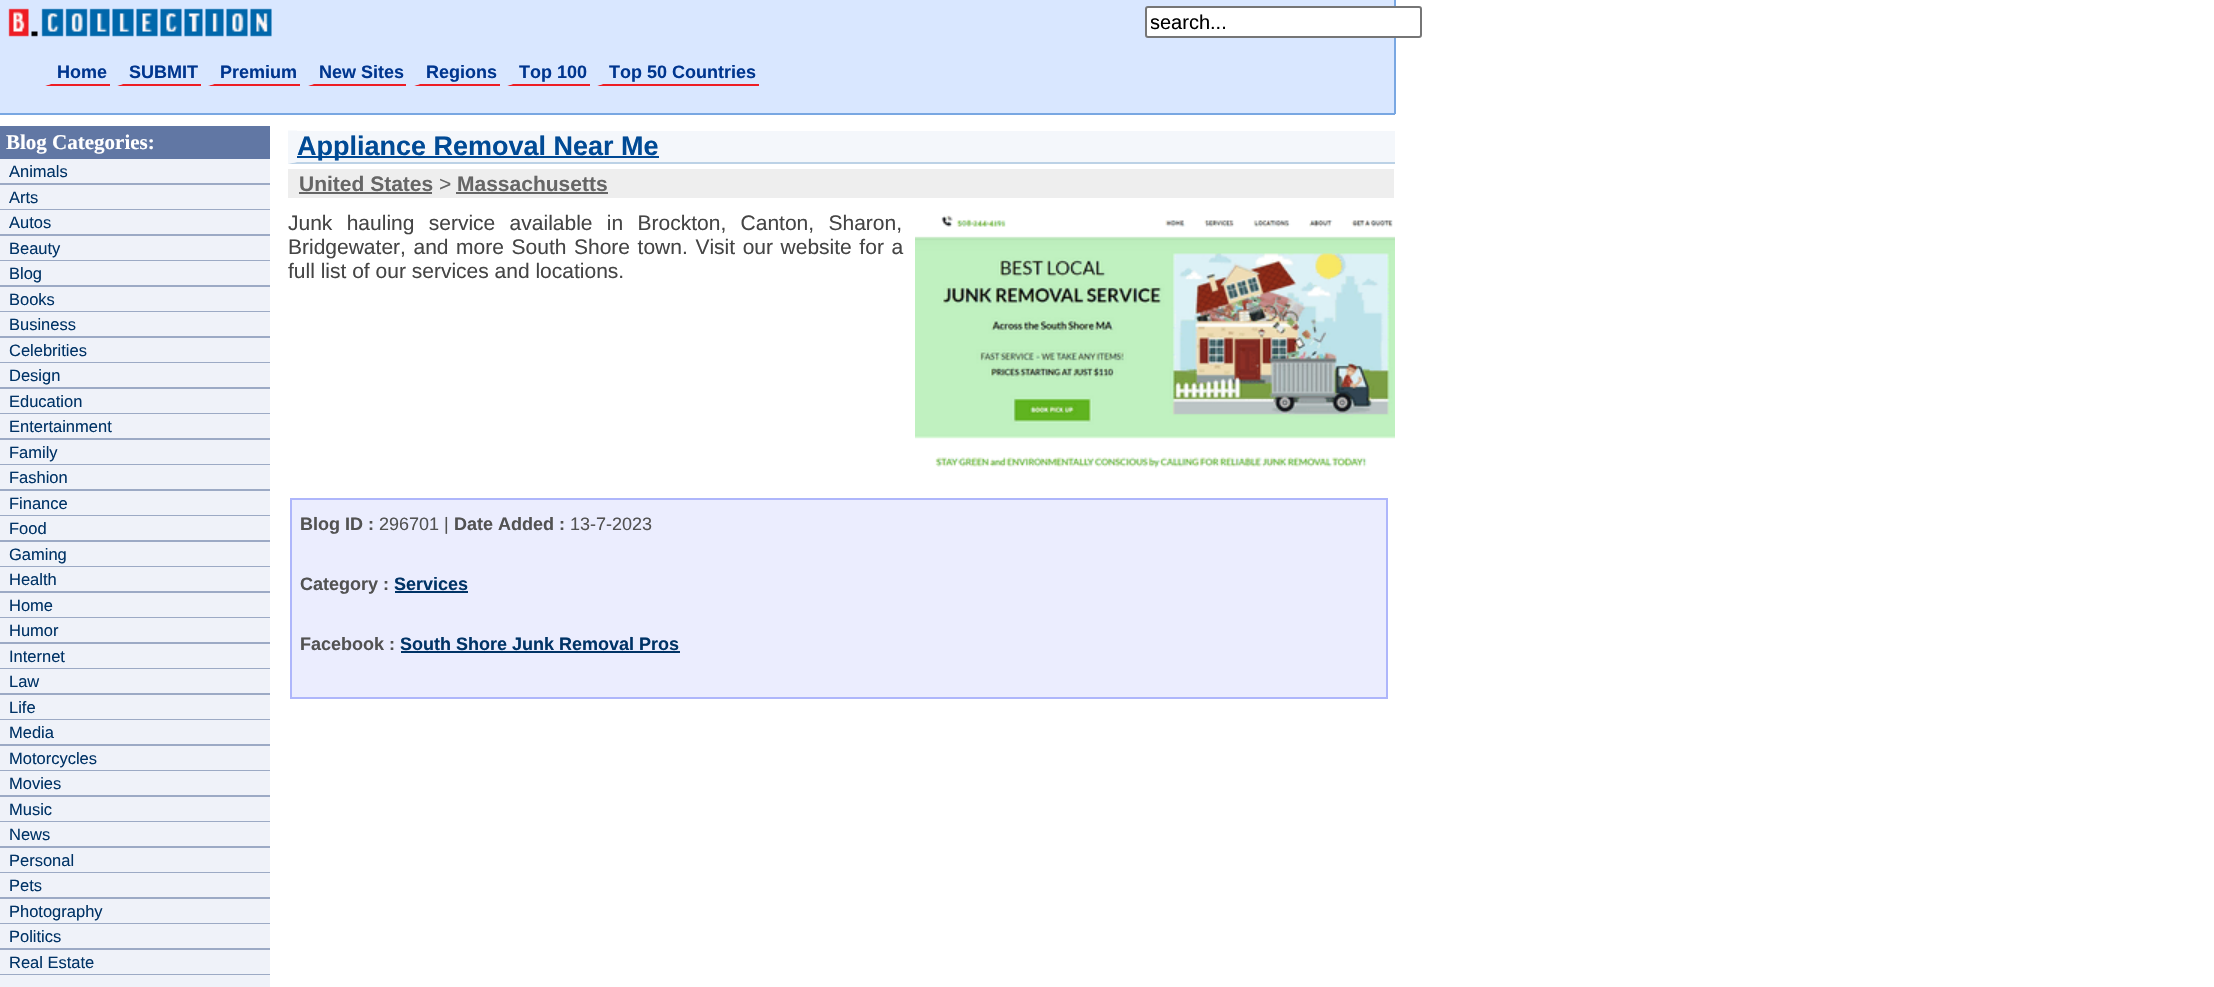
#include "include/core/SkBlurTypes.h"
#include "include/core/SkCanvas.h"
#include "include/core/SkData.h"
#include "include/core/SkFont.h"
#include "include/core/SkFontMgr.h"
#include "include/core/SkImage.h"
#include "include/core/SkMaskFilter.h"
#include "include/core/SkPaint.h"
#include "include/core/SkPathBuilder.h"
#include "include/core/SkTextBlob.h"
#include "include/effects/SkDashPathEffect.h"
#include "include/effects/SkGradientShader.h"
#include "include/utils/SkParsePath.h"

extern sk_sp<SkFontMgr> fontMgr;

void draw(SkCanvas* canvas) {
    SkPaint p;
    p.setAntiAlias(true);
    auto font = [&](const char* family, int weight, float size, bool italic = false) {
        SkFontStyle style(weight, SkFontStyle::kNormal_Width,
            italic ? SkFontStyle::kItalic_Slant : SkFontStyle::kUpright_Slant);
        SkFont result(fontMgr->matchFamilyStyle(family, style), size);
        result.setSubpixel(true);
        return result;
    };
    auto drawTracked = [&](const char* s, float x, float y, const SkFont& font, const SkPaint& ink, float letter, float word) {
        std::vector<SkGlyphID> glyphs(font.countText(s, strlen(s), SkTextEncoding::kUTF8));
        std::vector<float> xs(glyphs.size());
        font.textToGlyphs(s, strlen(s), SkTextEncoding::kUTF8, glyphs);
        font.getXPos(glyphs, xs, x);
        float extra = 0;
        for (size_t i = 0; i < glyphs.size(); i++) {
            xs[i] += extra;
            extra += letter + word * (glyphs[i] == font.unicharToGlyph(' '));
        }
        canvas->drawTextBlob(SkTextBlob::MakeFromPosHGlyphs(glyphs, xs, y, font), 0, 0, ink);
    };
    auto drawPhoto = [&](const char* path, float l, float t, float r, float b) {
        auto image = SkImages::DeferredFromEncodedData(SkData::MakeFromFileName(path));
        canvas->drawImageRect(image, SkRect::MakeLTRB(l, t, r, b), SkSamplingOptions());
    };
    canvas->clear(0xFFFFFFFF);
    p.setColor(0xFFD9E7FF);
    canvas->drawRect(SkRect::MakeLTRB(0, 0, 1394, 113), p);
    drawPhoto("media/1.png", 8, 8, 272, 37);
    p.setColor(0xFF79A7E2);
    canvas->drawRect(SkRect::MakeLTRB(1394, 0, 1396, 114), p);
    p.setColor(0xFFFFFFFF);
    canvas->drawRoundRect(SkRect::MakeLTRB(1146, 7, 1421, 37), 2, 2, p);
    p.setStyle(SkPaint::kStroke_Style);
    p.setStrokeWidth(2);
    p.setColor(0xFF767676);
    canvas->drawRoundRect(SkRect::MakeLTRB(1146, 7, 1421, 37), 2, 2, p);
    canvas->save();
    canvas->clipRect(SkRect::MakeLTRB(1151, 11, 1416, 33));
    auto font1 = font("Liberation Sans", 400, 20);
    p.setStyle(SkPaint::kFill_Style);
    p.setColor(0xFF000000);
    canvas->drawString("search...", 1150, 29, font1, p);
    canvas->restore();
    p.setColor(0xFF79A7E2);
    canvas->drawRect(SkRect::MakeLTRB(0, 113, 1395, 115), p);
    auto font2 = font("Liberation Sans", 700, 18);
    p.setColor(0xFF00368F);
    canvas->drawString("Home", 57, 78, font2, p);
    p.setColor(0xFFEE1D24);
    canvas->drawPath(SkPathBuilder().moveTo(110, 86).lineTo(45, 86).lineTo(51, 84).lineTo(110, 84).close().detach(), p);
    p.setColor(0xFFD9E7FF);
    canvas->drawPath(SkPathBuilder().moveTo(45, 85.5f).lineTo(45, 57).lineTo(51, 57).lineTo(51, 84).close().detach(), p);
    p.setColor(0xFF00368F);
    canvas->drawString("SUBMIT", 129, 78, font2, p);
    p.setColor(0xFFEE1D24);
    canvas->drawPath(SkPathBuilder().moveTo(201, 86).lineTo(117, 86).lineTo(123, 84).lineTo(201, 84).close().detach(), p);
    p.setColor(0xFFD9E7FF);
    canvas->drawPath(SkPathBuilder().moveTo(117, 85.5f).lineTo(117, 57).lineTo(123, 57).lineTo(123, 84).close().detach(), p);
    p.setColor(0xFF00368F);
    canvas->drawString("Premium", 220, 78, font2, p);
    p.setColor(0xFFEE1D24);
    canvas->drawPath(SkPathBuilder().moveTo(300, 86).lineTo(208, 86).lineTo(214, 84).lineTo(300, 84).close().detach(), p);
    p.setColor(0xFFD9E7FF);
    canvas->drawPath(SkPathBuilder().moveTo(208.5f, 85.5f).lineTo(208.5f, 57).lineTo(214.5f, 57).lineTo(214.5f, 84).close().detach(), p);
    p.setColor(0xFF00368F);
    canvas->drawString("New Sites", 319, 78, font2, p);
    p.setColor(0xFFEE1D24);
    canvas->drawPath(SkPathBuilder().moveTo(406, 86).lineTo(308, 86).lineTo(314, 84).lineTo(406, 84).close().detach(), p);
    p.setColor(0xFFD9E7FF);
    canvas->drawPath(SkPathBuilder().moveTo(307.5f, 85.5f).lineTo(307.5f, 57).lineTo(313.5f, 57).lineTo(313.5f, 84).close().detach(), p);
    p.setColor(0xFF00368F);
    canvas->drawString("Regions", 426, 78, font2, p);
    p.setColor(0xFFEE1D24);
    canvas->drawPath(SkPathBuilder().moveTo(500, 86).lineTo(414, 86).lineTo(420, 84).lineTo(500, 84).close().detach(), p);
    p.setColor(0xFFD9E7FF);
    canvas->drawPath(SkPathBuilder().moveTo(414, 85.5f).lineTo(414, 57).lineTo(420, 57).lineTo(420, 84).close().detach(), p);
    p.setColor(0xFF00368F);
    canvas->drawString("Top 100", 519, 78, font2, p);
    p.setColor(0xFFEE1D24);
    canvas->drawPath(SkPathBuilder().moveTo(590, 86).lineTo(507, 86).lineTo(513, 84).lineTo(590, 84).close().detach(), p);
    p.setColor(0xFFD9E7FF);
    canvas->drawPath(SkPathBuilder().moveTo(507, 85.5f).lineTo(507, 57).lineTo(513, 57).lineTo(513, 84).close().detach(), p);
    p.setColor(0xFF00368F);
    canvas->drawString("Top 50 Countries", 609, 78, font2, p);
    p.setColor(0xFFEE1D24);
    canvas->drawPath(SkPathBuilder().moveTo(759, 86).lineTo(597, 86).lineTo(603, 84).lineTo(759, 84).close().detach(), p);
    p.setColor(0xFFD9E7FF);
    canvas->drawPath(SkPathBuilder().moveTo(597, 85.5f).lineTo(597, 57).lineTo(603, 57).lineTo(603, 84).close().detach(), p);
    p.setColor(0xFF6177A4);
    canvas->drawRect(SkRect::MakeLTRB(0, 126, 270, 159), p);
    auto font3 = font("Liberation Serif", 700, 21);
    p.setColor(0xFFFFFFFF);
    canvas->drawString("Blog Categories:", 6, 149, font3, p);
    p.setColor(0xFFEFF2F9);
    canvas->drawRect(SkRect::MakeLTRB(0, 159, 270, 183), p);
    p.setColor(0xFF9CAAC5);
    canvas->drawRect(SkRect::MakeLTRB(0, 183, 270, 185), p);
    auto font4 = font("Liberation Sans", 400, 16.5f);
    p.setColor(0xFF003366);
    canvas->drawString("Animals", 9, 177, font4, p);
    p.setColor(0xFFEFF2F9);
    canvas->drawRect(SkRect::MakeLTRB(0, 185, 270, 209), p);
    p.setColor(0xFF9CAAC5);
    canvas->drawRect(SkRect::MakeLTRB(0, 209, 270, 210), p);
    p.setColor(0xFF003366);
    canvas->drawString("Arts", 9, 203, font4, p);
    p.setColor(0xFFEFF2F9);
    canvas->drawRect(SkRect::MakeLTRB(0, 210, 270, 234), p);
    p.setColor(0xFF9CAAC5);
    canvas->drawRect(SkRect::MakeLTRB(0, 234, 270, 236), p);
    p.setColor(0xFF003366);
    canvas->drawString("Autos", 9, 228, font4, p);
    p.setColor(0xFFEFF2F9);
    canvas->drawRect(SkRect::MakeLTRB(0, 236, 270, 260), p);
    p.setColor(0xFF9CAAC5);
    canvas->drawRect(SkRect::MakeLTRB(0, 260, 270, 261), p);
    p.setColor(0xFF003366);
    canvas->drawString("Beauty", 9, 254, font4, p);
    p.setColor(0xFFEFF2F9);
    canvas->drawRect(SkRect::MakeLTRB(0, 261, 270, 285), p);
    p.setColor(0xFF9CAAC5);
    canvas->drawRect(SkRect::MakeLTRB(0, 285, 270, 287), p);
    p.setColor(0xFF003366);
    canvas->drawString("Blog", 9, 279, font4, p);
    p.setColor(0xFFEFF2F9);
    canvas->drawRect(SkRect::MakeLTRB(0, 287, 270, 311), p);
    p.setColor(0xFF9CAAC5);
    canvas->drawRect(SkRect::MakeLTRB(0, 311, 270, 312), p);
    p.setColor(0xFF003366);
    canvas->drawString("Books", 9, 305, font4, p);
    p.setColor(0xFFEFF2F9);
    canvas->drawRect(SkRect::MakeLTRB(0, 312, 270, 336), p);
    p.setColor(0xFF9CAAC5);
    canvas->drawRect(SkRect::MakeLTRB(0, 336, 270, 338), p);
    p.setColor(0xFF003366);
    canvas->drawString("Business", 9, 330, font4, p);
    p.setColor(0xFFEFF2F9);
    canvas->drawRect(SkRect::MakeLTRB(0, 338, 270, 362), p);
    p.setColor(0xFF9CAAC5);
    canvas->drawRect(SkRect::MakeLTRB(0, 362, 270, 363), p);
    p.setColor(0xFF003366);
    canvas->drawString("Celebrities", 9, 356, font4, p);
    p.setColor(0xFFEFF2F9);
    canvas->drawRect(SkRect::MakeLTRB(0, 363, 270, 387), p);
    p.setColor(0xFF9CAAC5);
    canvas->drawRect(SkRect::MakeLTRB(0, 387, 270, 389), p);
    p.setColor(0xFF003366);
    canvas->drawString("Design", 9, 381, font4, p);
    p.setColor(0xFFEFF2F9);
    canvas->drawRect(SkRect::MakeLTRB(0, 389, 270, 413), p);
    p.setColor(0xFF9CAAC5);
    canvas->drawRect(SkRect::MakeLTRB(0, 413, 270, 414), p);
    p.setColor(0xFF003366);
    canvas->drawString("Education", 9, 407, font4, p);
    p.setColor(0xFFEFF2F9);
    canvas->drawRect(SkRect::MakeLTRB(0, 414, 270, 438), p);
    p.setColor(0xFF9CAAC5);
    canvas->drawRect(SkRect::MakeLTRB(0, 438, 270, 440), p);
    p.setColor(0xFF003366);
    canvas->drawString("Entertainment", 9, 432, font4, p);
    p.setColor(0xFFEFF2F9);
    canvas->drawRect(SkRect::MakeLTRB(0, 440, 270, 464), p);
    p.setColor(0xFF9CAAC5);
    canvas->drawRect(SkRect::MakeLTRB(0, 464, 270, 465), p);
    p.setColor(0xFF003366);
    canvas->drawString("Family", 9, 458, font4, p);
    p.setColor(0xFFEFF2F9);
    canvas->drawRect(SkRect::MakeLTRB(0, 465, 270, 489), p);
    p.setColor(0xFF9CAAC5);
    canvas->drawRect(SkRect::MakeLTRB(0, 489, 270, 491), p);
    p.setColor(0xFF003366);
    canvas->drawString("Fashion", 9, 483, font4, p);
    p.setColor(0xFFEFF2F9);
    canvas->drawRect(SkRect::MakeLTRB(0, 491, 270, 515), p);
    p.setColor(0xFF9CAAC5);
    canvas->drawRect(SkRect::MakeLTRB(0, 515, 270, 516), p);
    p.setColor(0xFF003366);
    canvas->drawString("Finance", 9, 509, font4, p);
    p.setColor(0xFFEFF2F9);
    canvas->drawRect(SkRect::MakeLTRB(0, 516, 270, 540), p);
    p.setColor(0xFF9CAAC5);
    canvas->drawRect(SkRect::MakeLTRB(0, 540, 270, 542), p);
    p.setColor(0xFF003366);
    canvas->drawString("Food", 9, 534, font4, p);
    p.setColor(0xFFEFF2F9);
    canvas->drawRect(SkRect::MakeLTRB(0, 542, 270, 566), p);
    p.setColor(0xFF9CAAC5);
    canvas->drawRect(SkRect::MakeLTRB(0, 566, 270, 567), p);
    p.setColor(0xFF003366);
    canvas->drawString("Gaming", 9, 560, font4, p);
    p.setColor(0xFFEFF2F9);
    canvas->drawRect(SkRect::MakeLTRB(0, 567, 270, 591), p);
    p.setColor(0xFF9CAAC5);
    canvas->drawRect(SkRect::MakeLTRB(0, 591, 270, 593), p);
    p.setColor(0xFF003366);
    canvas->drawString("Health", 9, 585, font4, p);
    p.setColor(0xFFEFF2F9);
    canvas->drawRect(SkRect::MakeLTRB(0, 593, 270, 617), p);
    p.setColor(0xFF9CAAC5);
    canvas->drawRect(SkRect::MakeLTRB(0, 617, 270, 618), p);
    p.setColor(0xFF003366);
    canvas->drawString("Home", 9, 611, font4, p);
    p.setColor(0xFFEFF2F9);
    canvas->drawRect(SkRect::MakeLTRB(0, 618, 270, 642), p);
    p.setColor(0xFF9CAAC5);
    canvas->drawRect(SkRect::MakeLTRB(0, 642, 270, 644), p);
    p.setColor(0xFF003366);
    canvas->drawString("Humor", 9, 636, font4, p);
    p.setColor(0xFFEFF2F9);
    canvas->drawRect(SkRect::MakeLTRB(0, 644, 270, 668), p);
    p.setColor(0xFF9CAAC5);
    canvas->drawRect(SkRect::MakeLTRB(0, 668, 270, 669), p);
    p.setColor(0xFF003366);
    canvas->drawString("Internet", 9, 662, font4, p);
    p.setColor(0xFFEFF2F9);
    canvas->drawRect(SkRect::MakeLTRB(0, 669, 270, 693), p);
    p.setColor(0xFF9CAAC5);
    canvas->drawRect(SkRect::MakeLTRB(0, 693, 270, 695), p);
    p.setColor(0xFF003366);
    canvas->drawString("Law", 9, 687, font4, p);
    p.setColor(0xFFEFF2F9);
    canvas->drawRect(SkRect::MakeLTRB(0, 695, 270, 719), p);
    p.setColor(0xFF9CAAC5);
    canvas->drawRect(SkRect::MakeLTRB(0, 719, 270, 720), p);
    p.setColor(0xFF003366);
    canvas->drawString("Life", 9, 713, font4, p);
    p.setColor(0xFFEFF2F9);
    canvas->drawRect(SkRect::MakeLTRB(0, 720, 270, 744), p);
    p.setColor(0xFF9CAAC5);
    canvas->drawRect(SkRect::MakeLTRB(0, 744, 270, 746), p);
    p.setColor(0xFF003366);
    canvas->drawString("Media", 9, 738, font4, p);
    p.setColor(0xFFEFF2F9);
    canvas->drawRect(SkRect::MakeLTRB(0, 746, 270, 770), p);
    p.setColor(0xFF9CAAC5);
    canvas->drawRect(SkRect::MakeLTRB(0, 770, 270, 771), p);
    p.setColor(0xFF003366);
    canvas->drawString("Motorcycles", 9, 764, font4, p);
    p.setColor(0xFFEFF2F9);
    canvas->drawRect(SkRect::MakeLTRB(0, 771, 270, 795), p);
    p.setColor(0xFF9CAAC5);
    canvas->drawRect(SkRect::MakeLTRB(0, 795, 270, 797), p);
    p.setColor(0xFF003366);
    canvas->drawString("Movies", 9, 789, font4, p);
    p.setColor(0xFFEFF2F9);
    canvas->drawRect(SkRect::MakeLTRB(0, 797, 270, 821), p);
    p.setColor(0xFF9CAAC5);
    canvas->drawRect(SkRect::MakeLTRB(0, 821, 270, 822), p);
    p.setColor(0xFF003366);
    canvas->drawString("Music", 9, 815, font4, p);
    p.setColor(0xFFEFF2F9);
    canvas->drawRect(SkRect::MakeLTRB(0, 822, 270, 846), p);
    p.setColor(0xFF9CAAC5);
    canvas->drawRect(SkRect::MakeLTRB(0, 846, 270, 848), p);
    p.setColor(0xFF003366);
    canvas->drawString("News", 9, 840, font4, p);
    p.setColor(0xFFEFF2F9);
    canvas->drawRect(SkRect::MakeLTRB(0, 848, 270, 872), p);
    p.setColor(0xFF9CAAC5);
    canvas->drawRect(SkRect::MakeLTRB(0, 872, 270, 873), p);
    p.setColor(0xFF003366);
    canvas->drawString("Personal", 9, 866, font4, p);
    p.setColor(0xFFEFF2F9);
    canvas->drawRect(SkRect::MakeLTRB(0, 873, 270, 897), p);
    p.setColor(0xFF9CAAC5);
    canvas->drawRect(SkRect::MakeLTRB(0, 897, 270, 899), p);
    p.setColor(0xFF003366);
    canvas->drawString("Pets", 9, 891, font4, p);
    p.setColor(0xFFEFF2F9);
    canvas->drawRect(SkRect::MakeLTRB(0, 899, 270, 923), p);
    p.setColor(0xFF9CAAC5);
    canvas->drawRect(SkRect::MakeLTRB(0, 923, 270, 924), p);
    p.setColor(0xFF003366);
    canvas->drawString("Photography", 9, 917, font4, p);
    p.setColor(0xFFEFF2F9);
    canvas->drawRect(SkRect::MakeLTRB(0, 924, 270, 948), p);
    p.setColor(0xFF9CAAC5);
    canvas->drawRect(SkRect::MakeLTRB(0, 948, 270, 950), p);
    p.setColor(0xFF003366);
    canvas->drawString("Politics", 9, 942, font4, p);
    p.setColor(0xFFEFF2F9);
    canvas->drawRect(SkRect::MakeLTRB(0, 950, 270, 974), p);
    p.setColor(0xFF9CAAC5);
    canvas->drawRect(SkRect::MakeLTRB(0, 974, 270, 975), p);
    p.setColor(0xFF003366);
    canvas->drawString("Real Estate", 9, 968, font4, p);
    p.setColor(0xFFEFF2F9);
    canvas->drawRect(SkRect::MakeLTRB(0, 975, 270, 987), p);
    p.setColor(0xFFF4F7FB);
    canvas->drawRect(SkRect::MakeLTRB(288, 131, 1395, 164), p);
    p.setColor(0xFFBCD2E6);
    canvas->drawPath(SkPathBuilder().moveTo(1395, 164).lineTo(288, 164).lineTo(297, 162).lineTo(1395, 162).close().detach(), p);
    p.setColor(0xFFF4F7FB);
    canvas->drawPath(SkPathBuilder().moveTo(288, 163.5f).lineTo(288, 130.5f).lineTo(297, 130.5f).lineTo(297, 162).close().detach(), p);
    p.setColor(0xFF004A95);
    canvas->drawRect(SkRect::MakeLTRB(297, 156, 659, 158), p);
    auto font5 = font("Liberation Sans", 700, 27);
    canvas->drawString("Appliance Removal Near Me", 297, 155, font5, p);
    p.setColor(0xFFEEEEEE);
    canvas->drawRect(SkRect::MakeLTRB(288, 169, 1394, 198), p);
    auto font6 = font("Liberation Sans", 700, 21);
    p.setColor(0xFF666666);
    canvas->drawString("United States", 299, 191, font6, p);
    canvas->drawRect(SkRect::MakeLTRB(299, 192, 432, 194), p);
    auto font7 = font("Liberation Sans", 400, 21);
    canvas->drawString(">", 439, 191, font7, p);
    canvas->drawString("Massachusetts", 457, 191, font6, p);
    canvas->drawRect(SkRect::MakeLTRB(456, 192, 608, 194), p);
    p.setColor(0xFF454545);
    drawTracked("Junk hauling service available in Brockton, Canton, Sharon,", 288, 230, font7, p, 0, 8.5f);
    drawTracked("Bridgewater, and more South Shore town. Visit our website for a", 288, 254, font7, p, 0, 1.75f);
    canvas->drawString("full list of our services and locations.", 288, 278, font7, p);
    drawPhoto("media/2.png", 915, 215, 1395, 469);
    p.setColor(0xFFEBEDFE);
    canvas->drawRect(SkRect::MakeLTRB(291, 499, 1387, 698), p);
    p.setStyle(SkPaint::kStroke_Style);
    p.setColor(0xFFAEB6FB);
    canvas->drawRect(SkRect::MakeLTRB(291, 499, 1387, 698), p);
    p.setStyle(SkPaint::kFill_Style);
    p.setColor(0xFF525252);
    canvas->drawString("Blog ID :", 300, 530, font2, p);
    auto font8 = font("Liberation Sans", 400, 18);
    canvas->drawString("296701 |", 379, 530, font8, p);
    canvas->drawString("Date Added :", 454, 530, font2, p);
    canvas->drawString("13-7-2023", 570, 530, font8, p);
    canvas->drawString("Category :", 300, 590, font2, p);
    p.setColor(0xFF003366);
    canvas->drawString("Services", 394, 590, font2, p);
    canvas->drawRect(SkRect::MakeLTRB(395, 591, 468, 593), p);
    p.setColor(0xFF525252);
    canvas->drawString("Facebook :", 300, 650, font2, p);
    p.setColor(0xFF003366);
    canvas->drawString("South Shore Junk Removal Pros", 400, 650, font2, p);
    canvas->drawRect(SkRect::MakeLTRB(401, 651, 680, 653), p);
}
